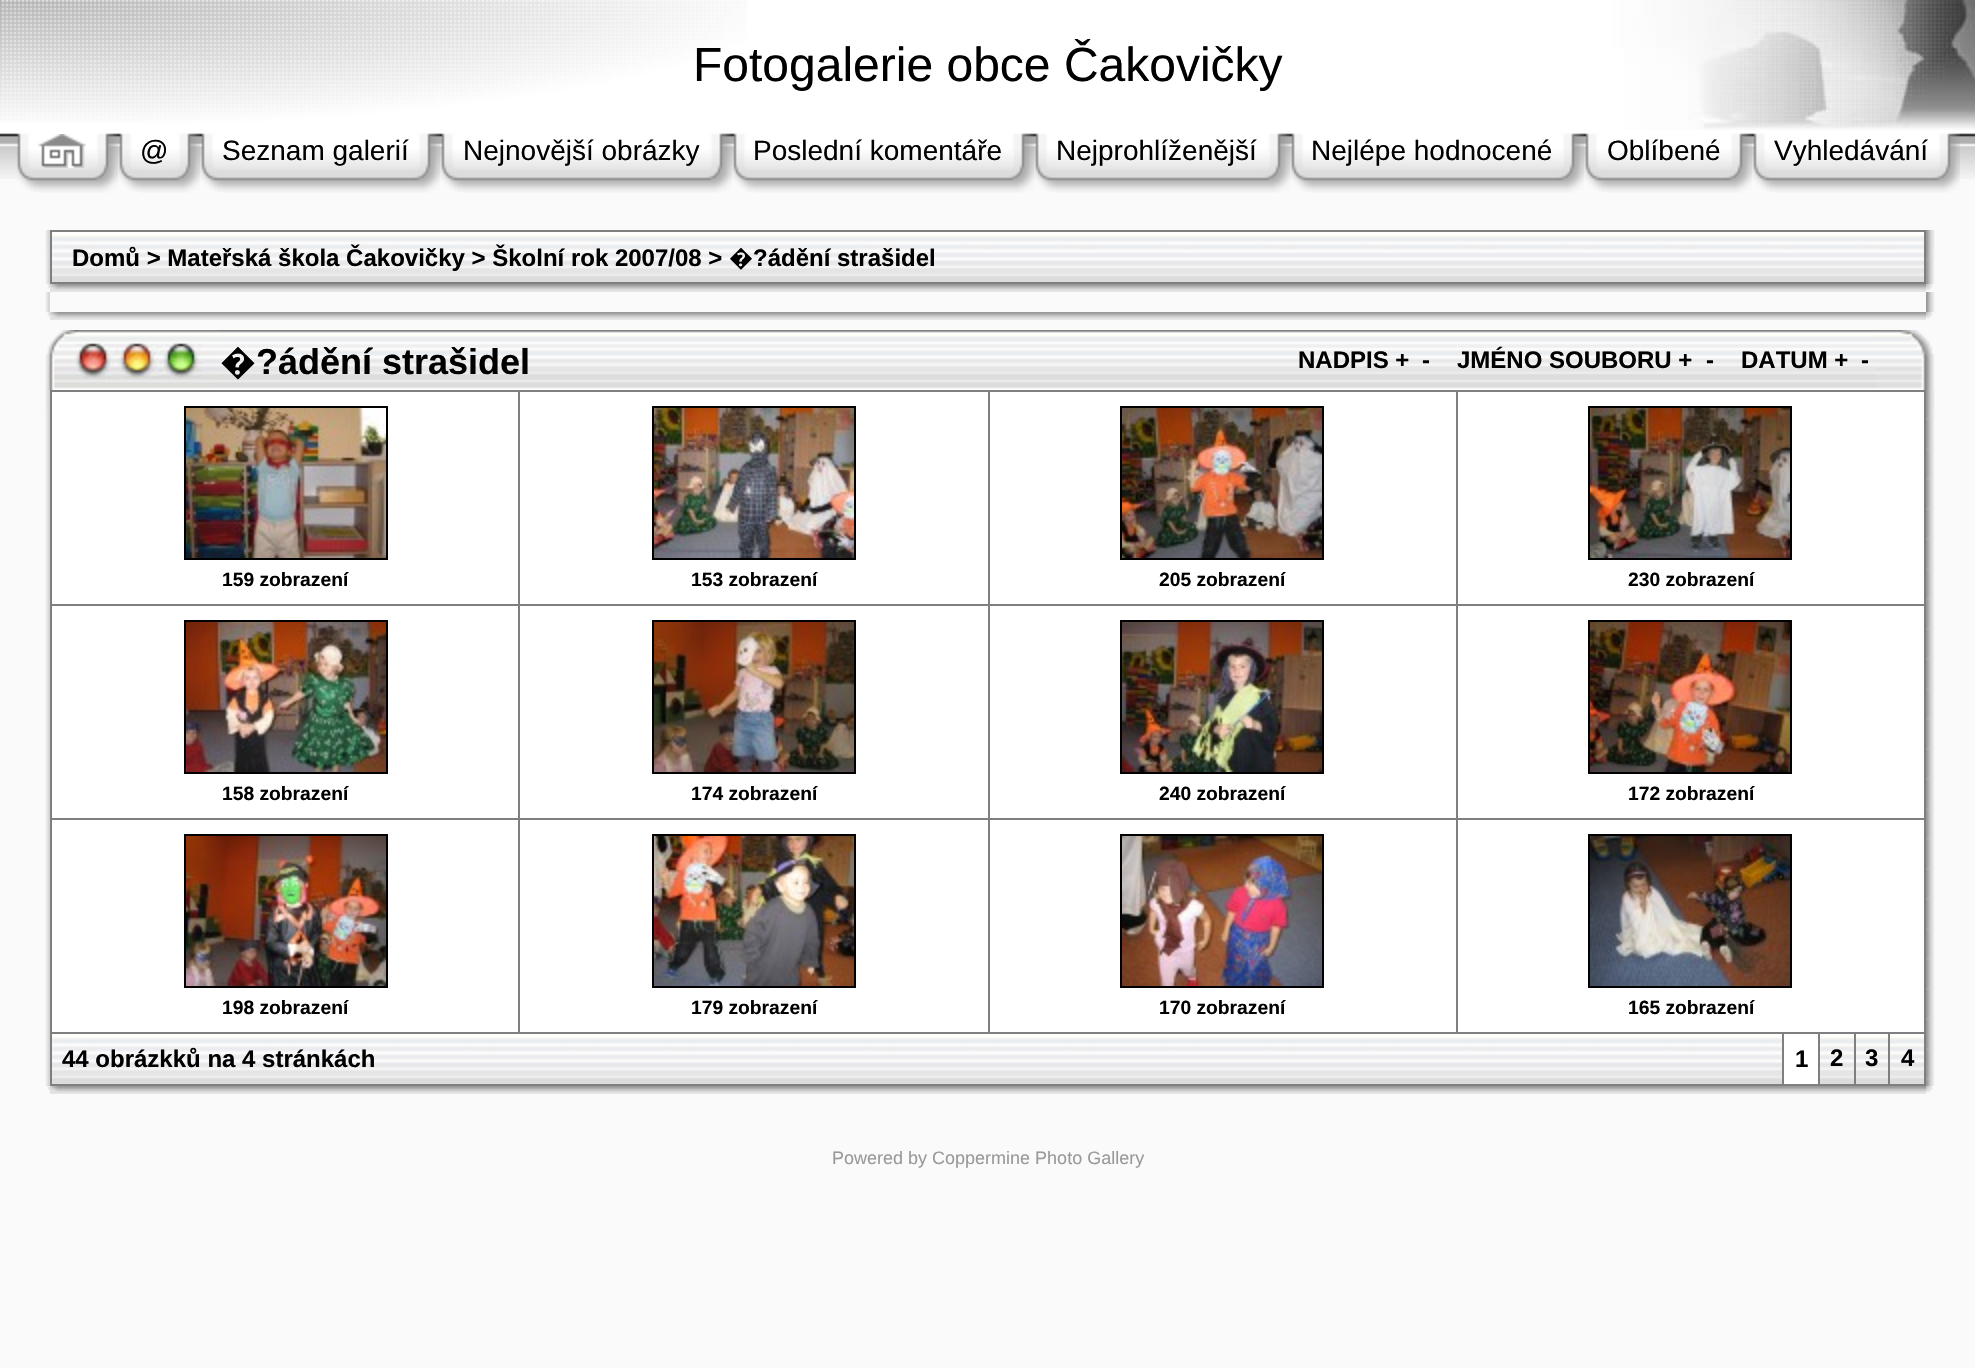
#include "include/core/SkBlurTypes.h"
#include "include/core/SkCanvas.h"
#include "include/core/SkData.h"
#include "include/core/SkFont.h"
#include "include/core/SkFontMgr.h"
#include "include/core/SkImage.h"
#include "include/core/SkMaskFilter.h"
#include "include/core/SkPaint.h"
#include "include/core/SkPathBuilder.h"
#include "include/core/SkTextBlob.h"
#include "include/effects/SkDashPathEffect.h"
#include "include/effects/SkGradientShader.h"
#include "include/utils/SkParsePath.h"

extern sk_sp<SkFontMgr> fontMgr;

void draw(SkCanvas* canvas) {
    SkPaint p;
    p.setAntiAlias(true);
    auto font = [&](const char* family, int weight, float size, bool italic = false) {
        SkFontStyle style(weight, SkFontStyle::kNormal_Width,
            italic ? SkFontStyle::kItalic_Slant : SkFontStyle::kUpright_Slant);
        SkFont result(fontMgr->matchFamilyStyle(family, style), size);
        result.setSubpixel(true);
        return result;
    };
    auto drawPhoto = [&](const char* path, float l, float t, float r, float b) {
        auto image = SkImages::DeferredFromEncodedData(SkData::MakeFromFileName(path));
        canvas->drawImageRect(image, SkRect::MakeLTRB(l, t, r, b), SkSamplingOptions());
    };
    canvas->clear(0xFFFAFAFA);
    p.setColor(0xFFFFFFFF);
    canvas->drawRect(SkRect::MakeLTRB(0, 0, 1576, 130), p);
    drawPhoto("media/1.png", 0, 0, 747, 123);
    auto font1 = font("Liberation Sans", 400, 48);
    p.setColor(0xFF000000);
    canvas->drawString("Fotogalerie obce Čakovičky", 693, 81, font1, p);
    drawPhoto("media/2.png", 1576, 0, 1975, 130);
    drawPhoto("media/3.png", 0, 130, 1975, 179);
    drawPhoto("media/4.png", 16, 133, 38, 192);
    drawPhoto("media/5.png", 38, 133, 86, 193);
    drawPhoto("media/6.png", 38, 134, 86, 168);
    drawPhoto("media/7.png", 86, 133, 118, 193);
    drawPhoto("media/4.png", 118, 133, 140, 192);
    drawPhoto("media/8.png", 140, 133, 168, 193);
    auto font2 = font("Liberation Sans", 400, 28);
    canvas->drawString("@", 140, 160, font2, p);
    drawPhoto("media/7.png", 168, 133, 200, 193);
    drawPhoto("media/4.png", 200, 133, 222, 192);
    drawPhoto("media/9.png", 222, 133, 408, 193);
    drawPhoto("media/7.png", 408, 133, 440, 193);
    canvas->drawString("Seznam galerií", 222, 160, font2, p);
    drawPhoto("media/4.png", 440, 133, 462, 192);
    drawPhoto("media/10.png", 462, 133, 700, 193);
    canvas->drawString("Nejnovější obrázky", 463, 160, font2, p);
    drawPhoto("media/7.png", 700, 133, 732, 193);
    drawPhoto("media/4.png", 732, 133, 754, 192);
    drawPhoto("media/11.png", 754, 133, 1002, 193);
    canvas->drawString("Poslední komentáře", 753, 160, font2, p);
    drawPhoto("media/7.png", 1002, 133, 1034, 193);
    drawPhoto("media/4.png", 1034, 133, 1056, 192);
    drawPhoto("media/12.png", 1056, 133, 1258, 193);
    canvas->drawString("Nejprohlíženější", 1056, 160, font2, p);
    drawPhoto("media/7.png", 1258, 133, 1290, 193);
    drawPhoto("media/4.png", 1290, 133, 1312, 192);
    drawPhoto("media/13.png", 1312, 133, 1552, 193);
    canvas->drawString("Nejlépe hodnocené", 1311, 160, font2, p);
    drawPhoto("media/7.png", 1552, 133, 1584, 193);
    drawPhoto("media/4.png", 1584, 133, 1606, 192);
    drawPhoto("media/14.png", 1606, 133, 1720, 193);
    canvas->drawString("Oblíbené", 1607, 160, font2, p);
    drawPhoto("media/7.png", 1720, 133, 1752, 193);
    drawPhoto("media/4.png", 1752, 133, 1774, 192);
    drawPhoto("media/15.png", 1774, 133, 1928, 193);
    drawPhoto("media/7.png", 1928, 133, 1960, 193);
    canvas->drawString("Vyhledávání", 1774, 160, font2, p);
    drawPhoto("media/16.png", 45, 230, 50, 284);
    {
        const struct { float l, t, r, b; SkColor color; } items[] = {
            {46, 230, 47, 250, 0xFFE7E7E7},
            {50, 230, 1926, 284, 0xFF7F7F7F},
            {52, 232, 1924, 234, 0xFFFFFFFF},
        };
        for (auto [l, t, r, b, color] : items) {
            p.setColor(color);
            canvas->drawRect(SkRect::MakeLTRB(l, t, r, b), p);
        }
    }
    drawPhoto("media/17.png", 52, 234, 1924, 282);
    auto font3 = font("Liberation Sans", 700, 24);
    p.setColor(0xFF000000);
    canvas->drawString("Domů > Mateřská škola Čakovičky > Školní rok 2007/08 >", 72, 266, font3, p);
    auto font4 = font("Noto Sans", 700, 24);
    canvas->drawString("�", 729, 266, font4, p);
    canvas->drawString("?ádění strašidel", 753, 266, font3, p);
    drawPhoto("media/18.png", 1926, 230, 1935, 284);
    p.setColor(0xFFE7E7E7);
    canvas->drawRect(SkRect::MakeLTRB(1933, 230, 1934, 250), p);
    drawPhoto("media/19.png", 47, 284, 50, 289);
    drawPhoto("media/20.png", 50, 284, 1926, 292);
    drawPhoto("media/21.png", 50, 284, 58, 290);
    drawPhoto("media/22.png", 1926, 284, 1933, 291);
    drawPhoto("media/23.png", 45, 292, 50, 312);
    drawPhoto("media/24.png", 1926, 292, 1935, 312);
    drawPhoto("media/19.png", 47, 312, 50, 317);
    drawPhoto("media/20.png", 50, 312, 1926, 320);
    drawPhoto("media/21.png", 50, 312, 58, 318);
    drawPhoto("media/22.png", 1926, 312, 1933, 319);
    drawPhoto("media/25.png", 45, 330, 220, 390);
    drawPhoto("media/26.png", 220, 330, 1876, 390);
    auto font5 = font("Noto Sans", 700, 36);
    p.setColor(0xFF000000);
    canvas->drawString("�", 220, 374, font5, p);
    auto font6 = font("Liberation Sans", 700, 36);
    canvas->drawString("?ádění strašidel", 256, 374, font6, p);
    {
        const struct { const char* s; float x, y; } items[] = {
            {"NADPIS +", 1298, 368},
            {"-", 1422, 368},
            {"JMÉNO SOUBORU +", 1457, 368},
            {"-", 1706, 368},
            {"DATUM +", 1741, 368},
            {"-", 1861, 368},
        };
        for (auto [s, x, y] : items) {
            canvas->drawString(s, x, y, font3, p);
        }
    }
    drawPhoto("media/27.png", 1876, 330, 1935, 390);
    drawPhoto("media/28.png", 45, 390, 50, 1086);
    {
        const struct { float l, t, r, b; SkColor color; } items[] = {
            {46, 390, 47, 410, 0xFFE7E7E7},
            {50, 390, 1926, 1086, 0xFF7F7F7F},
            {52, 392, 518, 604, 0xFFFFFFFF},
        };
        for (auto [l, t, r, b, color] : items) {
            p.setColor(color);
            canvas->drawRect(SkRect::MakeLTRB(l, t, r, b), p);
        }
    }
    p.setStyle(SkPaint::kStroke_Style);
    p.setStrokeWidth(2);
    p.setColor(0xFF000000);
    canvas->drawRect(SkRect::MakeLTRB(185, 407, 387, 559), p);
    drawPhoto("media/29.png", 186, 408, 386, 558);
    auto font7 = font("Liberation Sans", 700, 19.25f);
    p.setStyle(SkPaint::kFill_Style);
    canvas->drawString("159 zobrazení", 222, 586, font7, p);
    p.setColor(0xFFFFFFFF);
    canvas->drawRect(SkRect::MakeLTRB(520, 392, 988, 604), p);
    p.setStyle(SkPaint::kStroke_Style);
    p.setColor(0xFF000000);
    canvas->drawRect(SkRect::MakeLTRB(653, 407, 855, 559), p);
    drawPhoto("media/30.png", 654, 408, 854, 558);
    p.setStyle(SkPaint::kFill_Style);
    canvas->drawString("153 zobrazení", 691, 586, font7, p);
    p.setColor(0xFFFFFFFF);
    canvas->drawRect(SkRect::MakeLTRB(990, 392, 1456, 604), p);
    p.setStyle(SkPaint::kStroke_Style);
    p.setColor(0xFF000000);
    canvas->drawRect(SkRect::MakeLTRB(1121, 407, 1323, 559), p);
    drawPhoto("media/31.png", 1122, 408, 1322, 558);
    p.setStyle(SkPaint::kFill_Style);
    canvas->drawString("205 zobrazení", 1159, 586, font7, p);
    p.setColor(0xFFFFFFFF);
    canvas->drawRect(SkRect::MakeLTRB(1458, 392, 1924, 604), p);
    p.setStyle(SkPaint::kStroke_Style);
    p.setColor(0xFF000000);
    canvas->drawRect(SkRect::MakeLTRB(1589, 407, 1791, 559), p);
    drawPhoto("media/32.png", 1590, 408, 1790, 558);
    p.setStyle(SkPaint::kFill_Style);
    canvas->drawString("230 zobrazení", 1628, 586, font7, p);
    p.setColor(0xFFFFFFFF);
    canvas->drawRect(SkRect::MakeLTRB(52, 606, 518, 818), p);
    p.setStyle(SkPaint::kStroke_Style);
    p.setColor(0xFF000000);
    canvas->drawRect(SkRect::MakeLTRB(185, 621, 387, 773), p);
    drawPhoto("media/33.png", 186, 622, 386, 772);
    p.setStyle(SkPaint::kFill_Style);
    canvas->drawString("158 zobrazení", 222, 800, font7, p);
    p.setColor(0xFFFFFFFF);
    canvas->drawRect(SkRect::MakeLTRB(520, 606, 988, 818), p);
    p.setStyle(SkPaint::kStroke_Style);
    p.setColor(0xFF000000);
    canvas->drawRect(SkRect::MakeLTRB(653, 621, 855, 773), p);
    drawPhoto("media/34.png", 654, 622, 854, 772);
    p.setStyle(SkPaint::kFill_Style);
    canvas->drawString("174 zobrazení", 691, 800, font7, p);
    p.setColor(0xFFFFFFFF);
    canvas->drawRect(SkRect::MakeLTRB(990, 606, 1456, 818), p);
    p.setStyle(SkPaint::kStroke_Style);
    p.setColor(0xFF000000);
    canvas->drawRect(SkRect::MakeLTRB(1121, 621, 1323, 773), p);
    drawPhoto("media/35.png", 1122, 622, 1322, 772);
    p.setStyle(SkPaint::kFill_Style);
    canvas->drawString("240 zobrazení", 1159, 800, font7, p);
    p.setColor(0xFFFFFFFF);
    canvas->drawRect(SkRect::MakeLTRB(1458, 606, 1924, 818), p);
    p.setStyle(SkPaint::kStroke_Style);
    p.setColor(0xFF000000);
    canvas->drawRect(SkRect::MakeLTRB(1589, 621, 1791, 773), p);
    drawPhoto("media/36.png", 1590, 622, 1790, 772);
    p.setStyle(SkPaint::kFill_Style);
    canvas->drawString("172 zobrazení", 1628, 800, font7, p);
    p.setColor(0xFFFFFFFF);
    canvas->drawRect(SkRect::MakeLTRB(52, 820, 518, 1032), p);
    p.setStyle(SkPaint::kStroke_Style);
    p.setColor(0xFF000000);
    canvas->drawRect(SkRect::MakeLTRB(185, 835, 387, 987), p);
    drawPhoto("media/37.png", 186, 836, 386, 986);
    p.setStyle(SkPaint::kFill_Style);
    canvas->drawString("198 zobrazení", 222, 1014, font7, p);
    p.setColor(0xFFFFFFFF);
    canvas->drawRect(SkRect::MakeLTRB(520, 820, 988, 1032), p);
    p.setStyle(SkPaint::kStroke_Style);
    p.setColor(0xFF000000);
    canvas->drawRect(SkRect::MakeLTRB(653, 835, 855, 987), p);
    drawPhoto("media/38.png", 654, 836, 854, 986);
    p.setStyle(SkPaint::kFill_Style);
    canvas->drawString("179 zobrazení", 691, 1014, font7, p);
    p.setColor(0xFFFFFFFF);
    canvas->drawRect(SkRect::MakeLTRB(990, 820, 1456, 1032), p);
    p.setStyle(SkPaint::kStroke_Style);
    p.setColor(0xFF000000);
    canvas->drawRect(SkRect::MakeLTRB(1121, 835, 1323, 987), p);
    drawPhoto("media/39.png", 1122, 836, 1322, 986);
    p.setStyle(SkPaint::kFill_Style);
    canvas->drawString("170 zobrazení", 1159, 1014, font7, p);
    p.setColor(0xFFFFFFFF);
    canvas->drawRect(SkRect::MakeLTRB(1458, 820, 1924, 1032), p);
    p.setStyle(SkPaint::kStroke_Style);
    p.setColor(0xFF000000);
    canvas->drawRect(SkRect::MakeLTRB(1589, 835, 1791, 987), p);
    drawPhoto("media/40.png", 1590, 836, 1790, 986);
    p.setStyle(SkPaint::kFill_Style);
    canvas->drawString("165 zobrazení", 1628, 1014, font7, p);
    p.setColor(0xFFFFFFFF);
    canvas->drawRect(SkRect::MakeLTRB(52, 1034, 1782, 1036), p);
    drawPhoto("media/41.png", 52, 1036, 1782, 1084);
    p.setColor(0xFF000000);
    canvas->drawString("44 obrázkků na 4 stránkách", 62, 1067, font3, p);
    p.setColor(0xFFFFFFFF);
    canvas->drawRect(SkRect::MakeLTRB(1784, 1034, 1818, 1084), p);
    p.setColor(0xFF000000);
    canvas->drawString("1", 1795, 1067, font3, p);
    p.setColor(0xFFFFFFFF);
    canvas->drawRect(SkRect::MakeLTRB(1820, 1034, 1854, 1036), p);
    drawPhoto("media/42.png", 1820, 1036, 1854, 1084);
    p.setColor(0xFF000000);
    canvas->drawString("2", 1830, 1066, font3, p);
    p.setColor(0xFFFFFFFF);
    canvas->drawRect(SkRect::MakeLTRB(1856, 1034, 1888, 1036), p);
    drawPhoto("media/43.png", 1856, 1036, 1888, 1084);
    p.setColor(0xFF000000);
    canvas->drawString("3", 1865, 1066, font3, p);
    p.setColor(0xFFFFFFFF);
    canvas->drawRect(SkRect::MakeLTRB(1890, 1034, 1924, 1036), p);
    drawPhoto("media/42.png", 1890, 1036, 1924, 1084);
    p.setColor(0xFF000000);
    canvas->drawString("4", 1901, 1066, font3, p);
    drawPhoto("media/44.png", 1926, 390, 1935, 1086);
    p.setColor(0xFFE7E7E7);
    canvas->drawRect(SkRect::MakeLTRB(1933, 390, 1934, 410), p);
    drawPhoto("media/19.png", 47, 1086, 50, 1091);
    drawPhoto("media/20.png", 50, 1086, 1926, 1094);
    drawPhoto("media/21.png", 50, 1086, 58, 1092);
    drawPhoto("media/22.png", 1926, 1086, 1933, 1093);
    auto font8 = font("Liberation Sans", 400, 18);
    p.setColor(0xFF999999);
    canvas->drawString("Powered by Coppermine Photo Gallery", 832, 1164, font8, p);
}
